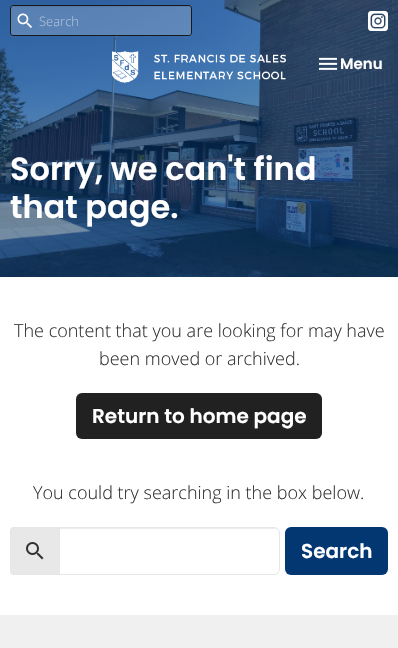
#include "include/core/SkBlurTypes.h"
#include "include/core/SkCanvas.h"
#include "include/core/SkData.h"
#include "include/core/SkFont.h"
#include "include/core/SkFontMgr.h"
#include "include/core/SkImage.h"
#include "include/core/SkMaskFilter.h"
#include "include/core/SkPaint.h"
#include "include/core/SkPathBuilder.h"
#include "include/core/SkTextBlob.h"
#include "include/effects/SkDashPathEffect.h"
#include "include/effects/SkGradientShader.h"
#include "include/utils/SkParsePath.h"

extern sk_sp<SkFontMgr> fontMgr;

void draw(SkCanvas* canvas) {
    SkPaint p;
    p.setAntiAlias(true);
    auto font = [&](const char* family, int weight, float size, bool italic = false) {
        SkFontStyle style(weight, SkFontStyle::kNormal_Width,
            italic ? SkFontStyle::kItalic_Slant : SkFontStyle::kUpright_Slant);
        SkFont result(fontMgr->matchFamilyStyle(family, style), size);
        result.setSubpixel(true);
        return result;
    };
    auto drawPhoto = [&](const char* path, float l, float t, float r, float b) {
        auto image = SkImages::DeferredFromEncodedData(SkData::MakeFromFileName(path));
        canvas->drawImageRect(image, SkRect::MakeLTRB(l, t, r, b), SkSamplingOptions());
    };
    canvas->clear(0xFFFFFFFF);
    drawPhoto("media/5.png", 0, 0, 398, 277);
    p.setColor(0x33FFFFFF);
    canvas->drawRoundRect(SkRect::MakeLTRB(10, 5, 192, 36), 3, 3, p);
    p.setColor(0x12000000);
    canvas->drawPath(SkPathBuilder().moveTo(13, 7).lineTo(189, 7).cubicTo(190, 7, 191, 8, 191, 9).lineTo(191, 8).cubicTo(191, 7, 190, 6, 189, 6).lineTo(13, 6).cubicTo(12, 6, 11, 7, 11, 8).lineTo(11, 9).cubicTo(11, 8, 12, 7, 13, 7).close().detach(), p);
    p.setStyle(SkPaint::kStroke_Style);
    p.setStrokeWidth(1);
    p.setColor(0xFF191919);
    canvas->drawRoundRect(SkRect::MakeLTRB(10.5f, 5.5f, 191.5f, 35.5f), 2.5f, 2.5f, p);
    drawPhoto("media/1.png", 17, 13, 32, 28);
    auto font1 = font("Open Sans", 300, 13);
    p.setStyle(SkPaint::kFill_Style);
    p.setColor(0xFFACC0DA);
    canvas->drawString("Search", 39, 26, font1, p);
    drawPhoto("media/2.png", 368, 11, 388, 31);
    drawPhoto("media/3.png", 112, 51, 286, 83);
    drawPhoto("media/4.png", 319, 57, 337, 70);
    auto font2 = font("Poppins", 600, 15);
    p.setColor(0xFFFFFFFF);
    canvas->drawString("Menu", 340, 69, font2, p);
    auto font3 = font("Poppins", 600, 32);
    canvas->drawString("Sorry, we can't find", 10, 180, font3, p);
    canvas->drawString("that page.", 10, 218, font3, p);
    auto font4 = font("Open Sans", 300, 18);
    p.setColor(0xFF333333);
    canvas->drawString("The content that you are looking for may have", 14, 337, font4, p);
    canvas->drawString("been moved or archived.", 99, 365, font4, p);
    p.setColor(0xFF212121);
    canvas->drawRoundRect(SkRect::MakeLTRB(76, 393, 322, 439), 6, 6, p);
    auto font5 = font("Poppins", 600, 20);
    p.setColor(0xFFFFFFFF);
    canvas->drawString("Return to home page", 92, 423, font5, p);
    p.setColor(0xFF333333);
    canvas->drawString("You could try searching in the box below.", 33, 499, font4, p);
    p.setColor(0xFFE8E8E8);
    canvas->drawPath(SkPathBuilder().moveTo(14, 527).lineTo(59, 527).lineTo(59, 575).lineTo(14, 575).cubicTo(12, 575, 10, 573, 10, 571).lineTo(10, 531).cubicTo(10, 529, 12, 527, 14, 527).close().detach(), p);
    p.setColor(0xFFE6E6E6);
    canvas->drawPath(SkPathBuilder(SkPathFillType::kEvenOdd).moveTo(14, 527).lineTo(59, 527).lineTo(59, 575).lineTo(14, 575).cubicTo(12, 575, 10, 573, 10, 571).lineTo(10, 531).cubicTo(10, 529, 12, 527, 14, 527).close().moveTo(14, 528).lineTo(59, 528).lineTo(59, 574).lineTo(14, 574).cubicTo(12, 574, 11, 573, 11, 571).lineTo(11, 531).cubicTo(11, 529, 12, 528, 14, 528).close().detach(), p);
    drawPhoto("media/6.png", 26, 542, 44, 560);
    p.setColor(0xFFECECEC);
    canvas->drawPath(SkPathBuilder().moveTo(60, 529).lineTo(274, 529).cubicTo(277, 529, 279, 531, 279, 534).cubicTo(279, 531, 277, 528, 274, 528).lineTo(60, 528).close().detach(), p);
    p.setStyle(SkPaint::kStroke_Style);
    p.setColor(0xFFE6E6E6);
    canvas->drawPath(SkPathBuilder().moveTo(59.5f, 527.5f).lineTo(274, 527.5f).cubicTo(277, 527.5f, 279.5f, 530, 279.5f, 533).lineTo(279.5f, 569).cubicTo(279.5f, 572, 277, 574.5f, 274, 574.5f).lineTo(59.5f, 574.5f).close().detach(), p);
    p.setStyle(SkPaint::kFill_Style);
    p.setColor(0xFF023772);
    canvas->drawRoundRect(SkRect::MakeLTRB(285, 527, 388, 575), 6, 6, p);
    p.setColor(0xFFFFFFFF);
    canvas->drawString("Search", 301, 558, font5, p);
    p.setColor(0xFFF0F0F0);
    canvas->drawRect(SkRect::MakeLTRB(0, 615, 398, 648), p);
}
